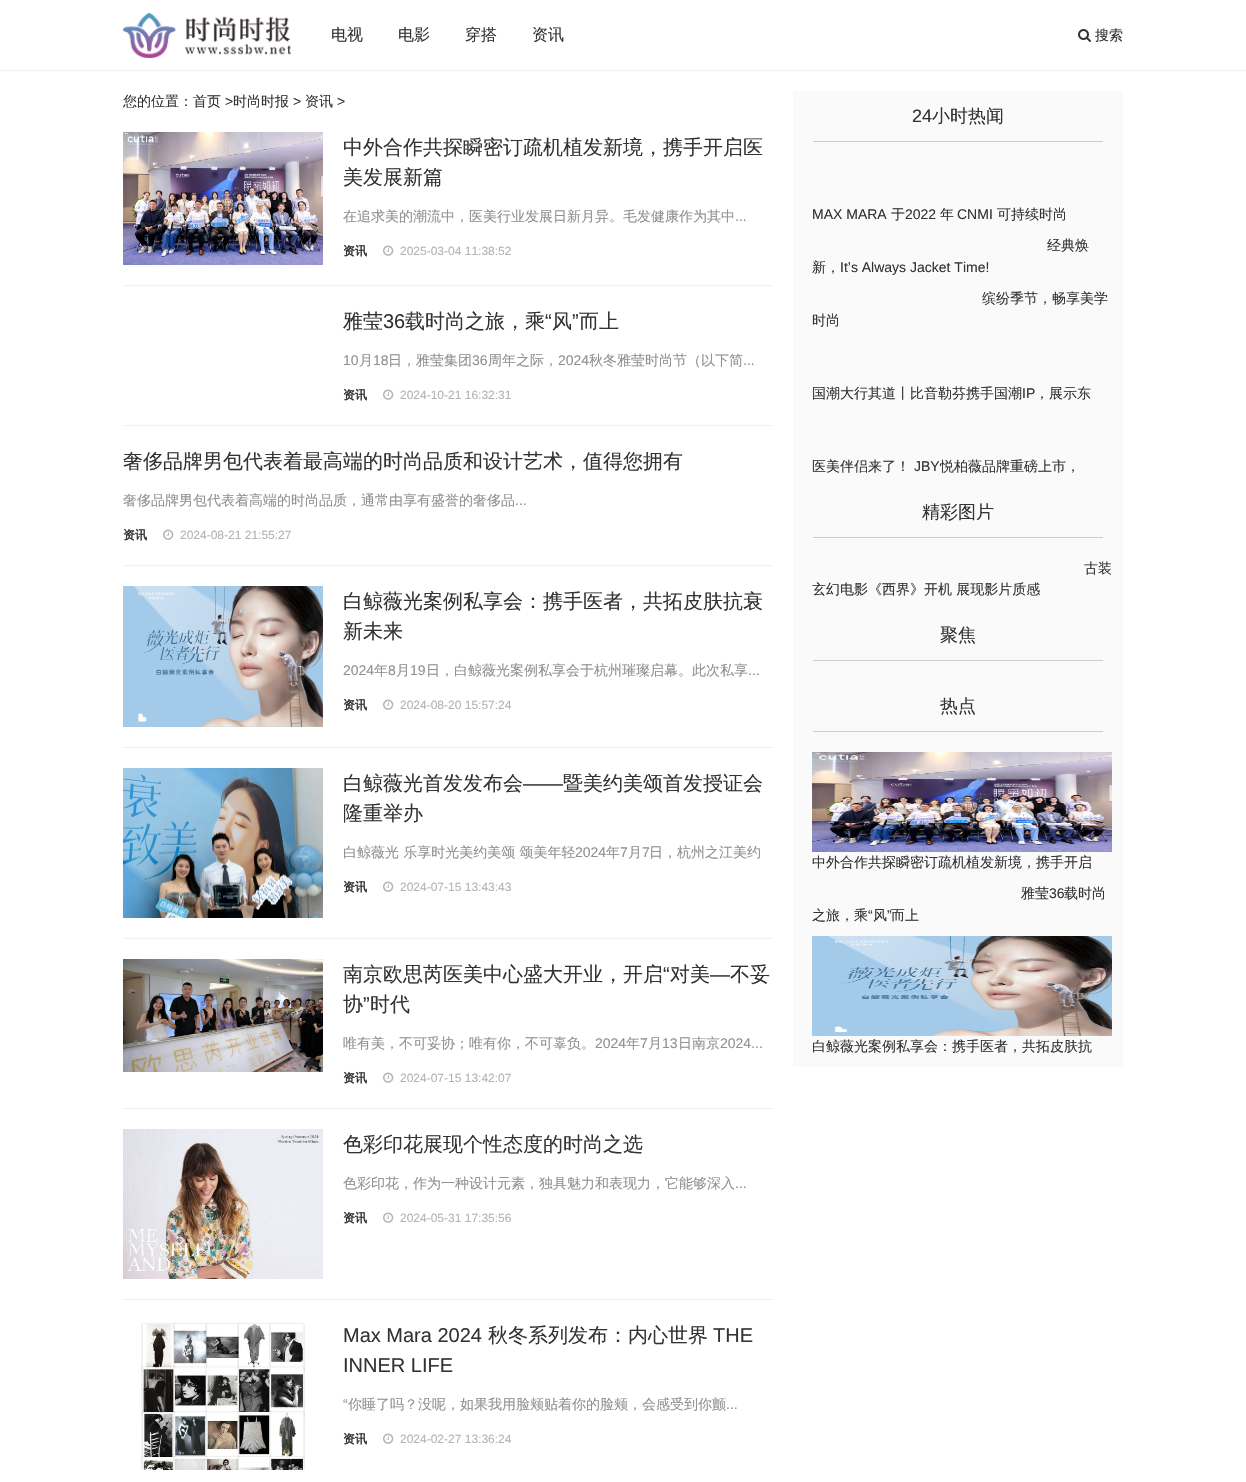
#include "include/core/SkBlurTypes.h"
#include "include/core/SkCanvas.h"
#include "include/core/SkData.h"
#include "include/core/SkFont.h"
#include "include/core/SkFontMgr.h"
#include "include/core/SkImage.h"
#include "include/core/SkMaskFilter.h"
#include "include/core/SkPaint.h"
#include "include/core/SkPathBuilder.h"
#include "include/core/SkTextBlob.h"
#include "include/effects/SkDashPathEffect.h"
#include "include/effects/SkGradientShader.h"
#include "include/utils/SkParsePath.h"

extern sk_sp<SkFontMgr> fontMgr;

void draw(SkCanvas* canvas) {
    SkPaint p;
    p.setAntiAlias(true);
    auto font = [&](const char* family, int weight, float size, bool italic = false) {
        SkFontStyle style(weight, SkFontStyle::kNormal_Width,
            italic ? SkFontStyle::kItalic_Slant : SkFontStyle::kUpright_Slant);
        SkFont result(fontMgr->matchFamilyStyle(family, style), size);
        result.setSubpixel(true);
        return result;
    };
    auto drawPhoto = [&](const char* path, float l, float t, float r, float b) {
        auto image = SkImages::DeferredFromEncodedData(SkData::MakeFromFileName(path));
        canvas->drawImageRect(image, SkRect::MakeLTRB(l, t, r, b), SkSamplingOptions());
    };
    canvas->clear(0xFFFFFFFF);
    p.setColor(0xFFF1F1F1);
    canvas->drawRect(SkRect::MakeLTRB(0, 70, 1246, 71), p);
    drawPhoto("media/1.png", 123, 12, 291, 59);
    auto font1 = font("WenQuanYi Zen Hei", 500, 16);
    p.setColor(0xFF333333);
    {
        const struct { const char* s; float x, y; } items[] = {
            {"电视", 331, 40},
            {"电影", 398, 40},
            {"穿搭", 465, 40},
            {"资讯", 532, 40},
        };
        for (auto [s, x, y] : items) {
            canvas->drawString(s, x, y, font1, p);
        }
    }
    drawPhoto("media/2.png", 1078, 29, 1091, 42);
    auto font2 = font("WenQuanYi Zen Hei", 500, 14);
    canvas->drawString("搜索", 1095, 40, font2, p);
    canvas->drawString("您的位置：首页", 123, 106, font2, p);
    auto font3 = font("Liberation Sans", 400, 14);
    canvas->drawString(">", 225, 106, font3, p);
    canvas->drawString("时尚时报", 233, 106, font2, p);
    canvas->drawString(">", 293, 106, font3, p);
    canvas->drawString("资讯", 305, 106, font2, p);
    canvas->drawString(">", 337, 106, font3, p);
    p.setColor(0xFFF1F1F1);
    canvas->drawRect(SkRect::MakeLTRB(123, 285, 773, 286), p);
    drawPhoto("media/3.png", 123, 132, 323, 265);
    auto font4 = font("WenQuanYi Zen Hei", 500, 20);
    p.setColor(0xFF333333);
    canvas->drawString("中外合作共探瞬密订疏机植发新境，携手开启医", 343, 154, font4, p);
    canvas->drawString("美发展新篇", 343, 184, font4, p);
    p.setColor(0xFF909090);
    canvas->drawString("在追求美的潮流中，医美行业发展日新月异。毛发健康作为其中", 343, 221, font2, p);
    canvas->drawString("...", 735, 221, font3, p);
    auto font5 = font("WenQuanYi Zen Hei", 700, 12);
    p.setColor(0xFF333333);
    canvas->drawString("资讯", 343, 255, font5, p);
    drawPhoto("media/4.png", 383, 245, 394, 256);
    auto font6 = font("Liberation Sans", 400, 12);
    p.setColor(0xFFB3B3B3);
    canvas->drawString("2025-03-04 11:38:52", 400, 255, font6, p);
    p.setColor(0xFFF1F1F1);
    canvas->drawRect(SkRect::MakeLTRB(123, 425, 773, 426), p);
    p.setColor(0xFF333333);
    canvas->drawString("雅莹", 343, 328, font4, p);
    auto font7 = font("Liberation Sans", 400, 20);
    canvas->drawString("36", 383, 328, font7, p);
    canvas->drawString("载时尚之旅，乘", 405, 328, font4, p);
    canvas->drawString("“", 545, 328, font7, p);
    canvas->drawString("风", 552, 328, font4, p);
    canvas->drawString("”", 572, 328, font7, p);
    canvas->drawString("而上", 579, 328, font4, p);
    p.setColor(0xFF909090);
    canvas->drawString("10", 343, 365, font3, p);
    canvas->drawString("月", 359, 365, font2, p);
    canvas->drawString("18", 373, 365, font3, p);
    canvas->drawString("日，雅莹集团", 388, 365, font2, p);
    canvas->drawString("36", 472, 365, font3, p);
    canvas->drawString("周年之际，", 488, 365, font2, p);
    canvas->drawString("2024", 558, 365, font3, p);
    canvas->drawString("秋冬雅莹时尚节（以下简", 589, 365, font2, p);
    canvas->drawString("...", 743, 365, font3, p);
    p.setColor(0xFF333333);
    canvas->drawString("资讯", 343, 399, font5, p);
    drawPhoto("media/4.png", 383, 389, 394, 400);
    p.setColor(0xFFB3B3B3);
    canvas->drawString("2024-10-21 16:32:31", 400, 399, font6, p);
    p.setColor(0xFFF1F1F1);
    canvas->drawRect(SkRect::MakeLTRB(123, 565, 773, 566), p);
    p.setColor(0xFF333333);
    canvas->drawString("奢侈品牌男包代表着最高端的时尚品质和设计艺术，值得您拥有", 123, 468, font4, p);
    p.setColor(0xFF909090);
    canvas->drawString("奢侈品牌男包代表着高端的时尚品质，通常由享有盛誉的奢侈品", 123, 505, font2, p);
    canvas->drawString("...", 515, 505, font3, p);
    p.setColor(0xFF333333);
    canvas->drawString("资讯", 123, 539, font5, p);
    drawPhoto("media/4.png", 163, 529, 174, 540);
    p.setColor(0xFFB3B3B3);
    canvas->drawString("2024-08-21 21:55:27", 180, 539, font6, p);
    p.setColor(0xFFF1F1F1);
    canvas->drawRect(SkRect::MakeLTRB(123, 747, 773, 748), p);
    drawPhoto("media/5.png", 123, 586, 323, 727);
    p.setColor(0xFF333333);
    canvas->drawString("白鲸薇光案例私享会：携手医者，共拓皮肤抗衰", 343, 608, font4, p);
    canvas->drawString("新未来", 343, 638, font4, p);
    p.setColor(0xFF909090);
    canvas->drawString("2024", 343, 675, font3, p);
    canvas->drawString("年", 374, 675, font2, p);
    canvas->drawString("8", 388, 675, font3, p);
    canvas->drawString("月", 396, 675, font2, p);
    canvas->drawString("19", 410, 675, font3, p);
    canvas->drawString("日，白鲸薇光案例私享会于杭州璀璨启幕。此次私享", 426, 675, font2, p);
    canvas->drawString("...", 748, 675, font3, p);
    p.setColor(0xFF333333);
    canvas->drawString("资讯", 343, 709, font5, p);
    drawPhoto("media/4.png", 383, 699, 394, 710);
    p.setColor(0xFFB3B3B3);
    canvas->drawString("2024-08-20 15:57:24", 400, 709, font6, p);
    p.setColor(0xFFF1F1F1);
    canvas->drawRect(SkRect::MakeLTRB(123, 938, 773, 939), p);
    drawPhoto("media/6.png", 123, 768, 323, 918);
    p.setColor(0xFF333333);
    canvas->drawString("白鲸薇光首发发布会", 343, 790, font4, p);
    canvas->drawString("——", 523, 790, font7, p);
    canvas->drawString("暨美约美颂首发授证会", 563, 790, font4, p);
    canvas->drawString("隆重举办", 343, 820, font4, p);
    p.setColor(0xFF909090);
    canvas->drawString("白鲸薇光 乐享时光美约美颂 颂美年轻", 343, 857, font2, p);
    canvas->drawString("2024", 575, 857, font3, p);
    canvas->drawString("年", 606, 857, font2, p);
    canvas->drawString("7", 620, 857, font3, p);
    canvas->drawString("月", 628, 857, font2, p);
    canvas->drawString("7", 642, 857, font3, p);
    canvas->drawString("日，杭州之江美约", 649, 857, font2, p);
    p.setColor(0xFF333333);
    canvas->drawString("资讯", 343, 891, font5, p);
    drawPhoto("media/4.png", 383, 881, 394, 892);
    p.setColor(0xFFB3B3B3);
    canvas->drawString("2024-07-15 13:43:43", 400, 891, font6, p);
    p.setColor(0xFFF1F1F1);
    canvas->drawRect(SkRect::MakeLTRB(123, 1108, 773, 1109), p);
    drawPhoto("media/7.png", 123, 959, 323, 1072);
    p.setColor(0xFF333333);
    canvas->drawString("南京欧思芮医美中心盛大开业，开启", 343, 981, font4, p);
    canvas->drawString("“", 663, 981, font7, p);
    canvas->drawString("对美", 670, 981, font4, p);
    canvas->drawString("—", 710, 981, font7, p);
    canvas->drawString("不妥", 730, 981, font4, p);
    canvas->drawString("协", 343, 1011, font4, p);
    canvas->drawString("”", 363, 1011, font7, p);
    canvas->drawString("时代", 370, 1011, font4, p);
    p.setColor(0xFF909090);
    canvas->drawString("唯有美，不可妥协；唯有你，不可辜负。", 343, 1048, font2, p);
    canvas->drawString("2024", 595, 1048, font3, p);
    canvas->drawString("年", 626, 1048, font2, p);
    canvas->drawString("7", 640, 1048, font3, p);
    canvas->drawString("月", 648, 1048, font2, p);
    canvas->drawString("13", 662, 1048, font3, p);
    canvas->drawString("日南京", 678, 1048, font2, p);
    canvas->drawString("2024...", 720, 1048, font3, p);
    p.setColor(0xFF333333);
    canvas->drawString("资讯", 343, 1082, font5, p);
    drawPhoto("media/4.png", 383, 1072, 394, 1083);
    p.setColor(0xFFB3B3B3);
    canvas->drawString("2024-07-15 13:42:07", 400, 1082, font6, p);
    p.setColor(0xFFF1F1F1);
    canvas->drawRect(SkRect::MakeLTRB(123, 1299, 773, 1300), p);
    drawPhoto("media/8.png", 123, 1129, 323, 1279);
    p.setColor(0xFF333333);
    canvas->drawString("色彩印花展现个性态度的时尚之选", 343, 1151, font4, p);
    p.setColor(0xFF909090);
    canvas->drawString("色彩印花，作为一种设计元素，独具魅力和表现力，它能够深入", 343, 1188, font2, p);
    canvas->drawString("...", 735, 1188, font3, p);
    p.setColor(0xFF333333);
    canvas->drawString("资讯", 343, 1222, font5, p);
    drawPhoto("media/4.png", 383, 1212, 394, 1223);
    p.setColor(0xFFB3B3B3);
    canvas->drawString("2024-05-31 17:35:56", 400, 1222, font6, p);
    drawPhoto("media/9.png", 141, 1322, 305, 1470);
    p.setColor(0xFF333333);
    canvas->drawString("Max Mara 2024", 343, 1342, font7, p);
    canvas->drawString("秋冬系列发布：内心世界", 488, 1342, font4, p);
    canvas->drawString("THE", 713, 1342, font7, p);
    canvas->drawString("INNER LIFE", 343, 1372, font7, p);
    p.setColor(0xFF909090);
    canvas->drawString("“", 343, 1409, font3, p);
    canvas->drawString("你睡了吗？没呢，如果我用脸颊贴着你的脸颊，会感受到你颤", 348, 1409, font2, p);
    canvas->drawString("...", 726, 1409, font3, p);
    p.setColor(0xFF333333);
    canvas->drawString("资讯", 343, 1443, font5, p);
    drawPhoto("media/4.png", 383, 1433, 394, 1444);
    p.setColor(0xFFB3B3B3);
    canvas->drawString("2024-02-27 13:36:24", 400, 1443, font6, p);
    p.setColor(0xFFFAFAFA);
    canvas->drawRect(SkRect::MakeLTRB(793, 91, 1123, 1067), p);
    p.setColor(0xFFCCCCCC);
    canvas->drawRect(SkRect::MakeLTRB(813, 141, 1103, 142), p);
    auto font8 = font("Liberation Sans", 400, 18);
    p.setColor(0xFF333333);
    canvas->drawString("24", 912, 122, font8, p);
    auto font9 = font("WenQuanYi Zen Hei", 500, 18);
    canvas->drawString("小时热闻", 932, 122, font9, p);
    canvas->drawString("MAX MARA", 812, 219, font3, p);
    canvas->drawString("于", 891, 219, font2, p);
    canvas->drawString("2022", 905, 219, font3, p);
    canvas->drawString("年", 940, 219, font2, p);
    canvas->drawString("CNMI", 957, 219, font3, p);
    {
        const struct { const char* s; float x, y; } items[] = {
            {"可持续时尚", 997, 219},
            {"经典焕", 1047, 250},
            {"新，", 812, 272},
        };
        for (auto [s, x, y] : items) {
            canvas->drawString(s, x, y, font2, p);
        }
    }
    canvas->drawString("It’s Always Jacket Time!", 840, 272, font3, p);
    {
        const struct { const char* s; float x, y; } items[] = {
            {"缤纷季节，畅享美学", 982, 303},
            {"时尚", 812, 325},
            {"国潮大行其道丨比音勒芬携手国潮", 812, 398},
        };
        for (auto [s, x, y] : items) {
            canvas->drawString(s, x, y, font2, p);
        }
    }
    canvas->drawString("IP", 1022, 398, font3, p);
    canvas->drawString("，展示东", 1035, 398, font2, p);
    canvas->drawString("医美伴侣来了！", 812, 471, font2, p);
    canvas->drawString("JBY", 914, 471, font3, p);
    canvas->drawString("悦柏薇品牌重磅上市，", 940, 471, font2, p);
    p.setColor(0xFFCCCCCC);
    canvas->drawRect(SkRect::MakeLTRB(813, 537, 1103, 538), p);
    p.setColor(0xFF333333);
    canvas->drawString("精彩图片", 922, 518, font9, p);
    canvas->drawString("古装", 1084, 573, font2, p);
    canvas->drawString("玄幻电影《西界》开机 展现影片质感", 812, 594, font2, p);
    p.setColor(0xFFCCCCCC);
    canvas->drawRect(SkRect::MakeLTRB(813, 660, 1103, 661), p);
    p.setColor(0xFF333333);
    canvas->drawString("聚焦", 940, 641, font9, p);
    p.setColor(0xFFCCCCCC);
    canvas->drawRect(SkRect::MakeLTRB(813, 731, 1103, 732), p);
    p.setColor(0xFF333333);
    canvas->drawString("热点", 940, 712, font9, p);
    drawPhoto("media/10.png", 812, 752, 1112, 852);
    canvas->drawString("中外合作共探瞬密订疏机植发新境，携手开启", 812, 867, font2, p);
    canvas->drawString("雅莹", 1021, 898, font2, p);
    canvas->drawString("36", 1049, 898, font3, p);
    canvas->drawString("载时尚", 1064, 898, font2, p);
    canvas->drawString("之旅，乘", 812, 920, font2, p);
    canvas->drawString("“", 868, 920, font3, p);
    canvas->drawString("风", 873, 920, font2, p);
    canvas->drawString("”", 887, 920, font3, p);
    canvas->drawString("而上", 891, 920, font2, p);
    drawPhoto("media/11.png", 812, 936, 1112, 1036);
    canvas->drawString("白鲸薇光案例私享会：携手医者，共拓皮肤抗", 812, 1051, font2, p);
}
